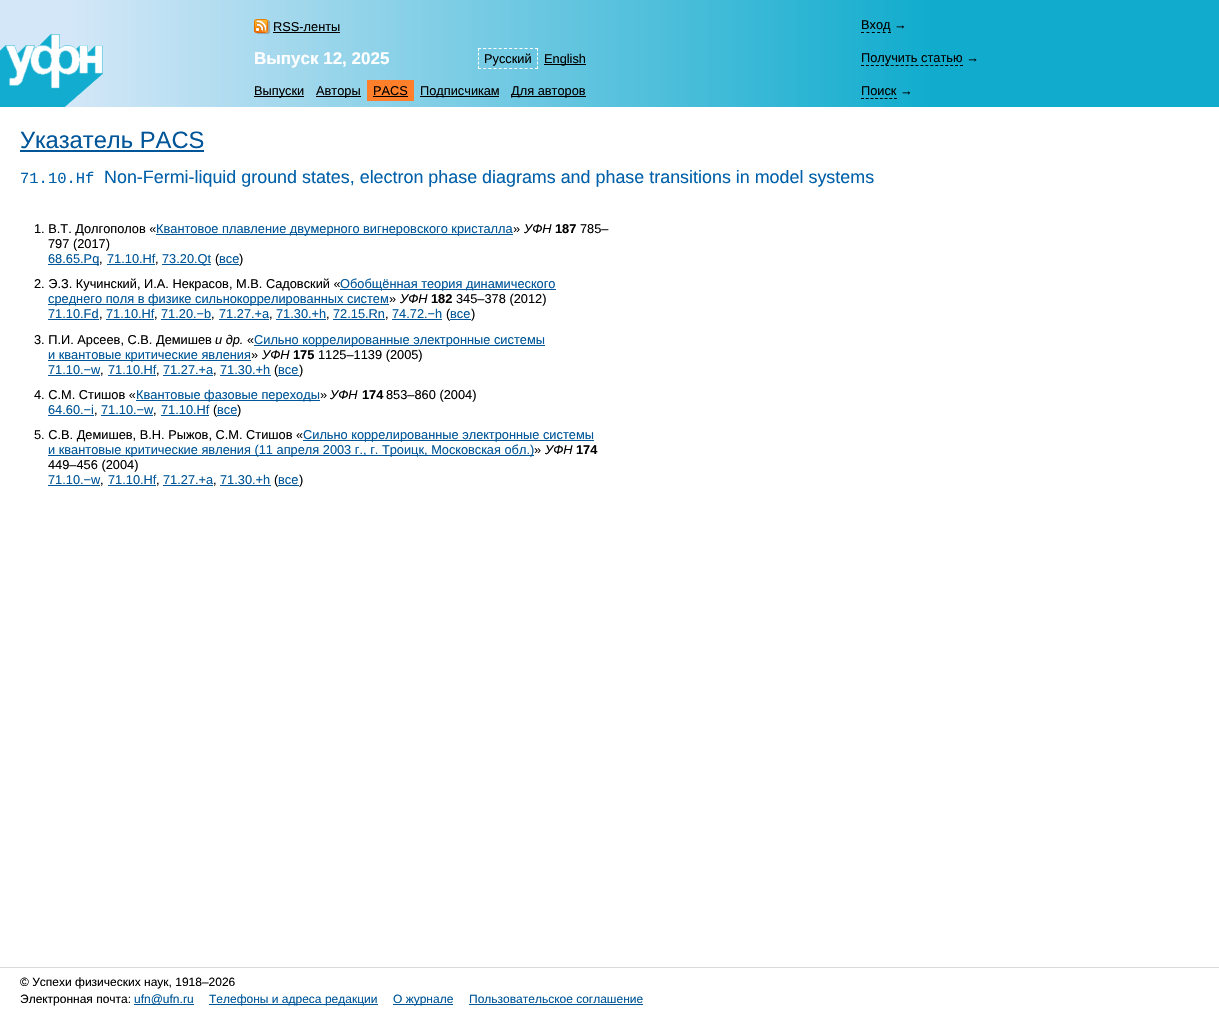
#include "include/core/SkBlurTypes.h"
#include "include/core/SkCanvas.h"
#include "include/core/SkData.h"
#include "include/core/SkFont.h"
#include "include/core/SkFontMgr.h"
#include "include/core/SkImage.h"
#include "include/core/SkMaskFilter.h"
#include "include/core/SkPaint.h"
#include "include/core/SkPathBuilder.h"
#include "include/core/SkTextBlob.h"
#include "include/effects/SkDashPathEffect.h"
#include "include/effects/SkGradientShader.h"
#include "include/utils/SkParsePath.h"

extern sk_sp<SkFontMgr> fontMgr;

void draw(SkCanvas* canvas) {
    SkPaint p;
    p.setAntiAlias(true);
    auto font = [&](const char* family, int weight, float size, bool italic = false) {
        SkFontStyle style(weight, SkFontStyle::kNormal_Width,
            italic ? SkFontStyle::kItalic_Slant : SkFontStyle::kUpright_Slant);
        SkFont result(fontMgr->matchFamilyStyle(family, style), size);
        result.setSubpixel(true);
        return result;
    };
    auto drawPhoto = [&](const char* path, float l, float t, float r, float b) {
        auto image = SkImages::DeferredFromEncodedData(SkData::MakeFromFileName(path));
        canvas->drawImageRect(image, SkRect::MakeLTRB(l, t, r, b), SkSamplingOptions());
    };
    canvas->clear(0xFFFFFFFF);
    drawPhoto("media/1.png", 0, 0, 1219, 107);
    drawPhoto("media/2.png", 254, 19, 270, 34);
    auto font1 = font("Liberation Sans", 400, 12.8f);
    p.setColor(0xFF000000);
    canvas->drawString("RSS-ленты", 273, 31, font1, p);
    canvas->drawRect(SkRect::MakeLTRB(273, 32, 340, 33), p);
    canvas->drawString("Вход →", 861, 29, font1, p);
    p.setStyle(SkPaint::kStroke_Style);
    p.setStrokeWidth(1);
    p.setPathEffect(SkDashPathEffect::Make({{3, 2.4f}}, 0));
    canvas->drawPath(SkPathBuilder().moveTo(861, 32.5f).lineTo(891, 32.5f).detach(), p);
    p.setPathEffect(nullptr);
    drawPhoto("media/3.png", 0, 34, 103, 107);
    p.setColor(0xFFFFFFFF);
    p.setPathEffect(SkDashPathEffect::Make({{3, 2.18f}}, 0));
    canvas->drawPath(SkPathBuilder().moveTo(478, 48.5f).lineTo(538, 48.5f).detach(), p);
    p.setPathEffect(nullptr);
    p.setPathEffect(SkDashPathEffect::Make({{3, 1.5f}}, 0));
    canvas->drawPath(SkPathBuilder().moveTo(537.5f, 48).lineTo(537.5f, 69).detach(), p);
    p.setPathEffect(nullptr);
    p.setPathEffect(SkDashPathEffect::Make({{3, 2.18f}}, 0));
    canvas->drawPath(SkPathBuilder().moveTo(478, 68.5f).lineTo(538, 68.5f).detach(), p);
    p.setPathEffect(nullptr);
    p.setPathEffect(SkDashPathEffect::Make({{3, 1.5f}}, 0));
    canvas->drawPath(SkPathBuilder().moveTo(478.5f, 48).lineTo(478.5f, 69).detach(), p);
    p.setPathEffect(nullptr);
    p.setStyle(SkPaint::kFill_Style);
    p.setColor(0xFF000000);
    canvas->drawString("Русский", 484, 63, font1, p);
    canvas->drawRect(SkRect::MakeLTRB(544, 64, 586, 65), p);
    canvas->drawString("English", 544, 63, font1, p);
    auto font2 = font("Liberation Sans", 700, 17);
    p.setColor(0xFFFFFFFF);
    canvas->drawString("Выпуск 12, 2025", 254, 64, font2, p);
    p.setColor(0xFF000000);
    canvas->drawString("Получить статью →", 861, 62, font1, p);
    p.setStyle(SkPaint::kStroke_Style);
    p.setPathEffect(SkDashPathEffect::Make({{3, 1.95f}}, 0));
    canvas->drawPath(SkPathBuilder().moveTo(861, 65.5f).lineTo(963, 65.5f).detach(), p);
    p.setPathEffect(nullptr);
    p.setStyle(SkPaint::kFill_Style);
    canvas->drawRect(SkRect::MakeLTRB(254, 96, 304, 97), p);
    canvas->drawString("Выпуски", 254, 95, font1, p);
    canvas->drawRect(SkRect::MakeLTRB(316, 96, 361, 97), p);
    canvas->drawString("Авторы", 316, 95, font1, p);
    p.setColor(0xFFFF7F2A);
    canvas->drawRect(SkRect::MakeLTRB(367, 80, 414, 101), p);
    p.setColor(0xFF000000);
    canvas->drawString("PACS", 373, 95, font1, p);
    canvas->drawRect(SkRect::MakeLTRB(373, 96, 408, 97), p);
    canvas->drawRect(SkRect::MakeLTRB(420, 96, 499, 97), p);
    canvas->drawString("Подписчикам", 420, 95, font1, p);
    canvas->drawRect(SkRect::MakeLTRB(511, 96, 586, 97), p);
    canvas->drawString("Для авторов", 511, 95, font1, p);
    canvas->drawString("Поиск →", 861, 95, font1, p);
    p.setStyle(SkPaint::kStroke_Style);
    p.setPathEffect(SkDashPathEffect::Make({{3, 1.71f}}, 0));
    canvas->drawPath(SkPathBuilder().moveTo(861, 98.5f).lineTo(897, 98.5f).detach(), p);
    p.setPathEffect(nullptr);
    auto font3 = font("Liberation Sans", 400, 23.75f);
    p.setStyle(SkPaint::kFill_Style);
    p.setColor(0xFF005698);
    canvas->drawString("Указатель PACS", 20, 148, font3, p);
    canvas->drawRect(SkRect::MakeLTRB(20, 150, 204, 152), p);
    auto font4 = font("Liberation Mono", 400, 15.5f);
    p.setColor(0xFF0060A9);
    canvas->drawString("71.10.Hf", 20, 183, font4, p);
    auto font5 = font("Liberation Sans", 400, 17.9f);
    canvas->drawString("Non-Fermi-liquid ground states, electron phase diagrams and phase transitions in model systems", 104, 183, font5, p);
    p.setColor(0xFF000000);
    canvas->drawString("1. В.Т. Долгополов «", 34, 233, font1, p);
    p.setColor(0xFF005698);
    canvas->drawRect(SkRect::MakeLTRB(156, 234, 513, 235), p);
    canvas->drawString("Квантовое плавление двумерного вигнеровского кристалла", 156, 233, font1, p);
    p.setColor(0xFF000000);
    canvas->drawString("»", 513, 233, font1, p);
    auto font6 = font("Liberation Sans", 400, 12.8f, true);
    canvas->drawString("УФН", 524, 233, font6, p);
    auto font7 = font("Liberation Sans", 700, 12.8f);
    canvas->drawString("187", 555, 233, font7, p);
    canvas->drawString("785–", 580, 233, font1, p);
    canvas->drawString("797 (2017)", 48, 248, font1, p);
    p.setColor(0xFF005698);
    canvas->drawRect(SkRect::MakeLTRB(48, 264, 99, 265), p);
    canvas->drawString("68.65.Pq", 48, 263, font1, p);
    p.setColor(0xFF000000);
    canvas->drawString(",", 99, 263, font1, p);
    p.setColor(0xFF005698);
    canvas->drawString("71.10.Hf", 107, 263, font1, p);
    canvas->drawRect(SkRect::MakeLTRB(107, 264, 155, 265), p);
    p.setColor(0xFF000000);
    canvas->drawString(",", 155, 263, font1, p);
    p.setColor(0xFF005698);
    canvas->drawRect(SkRect::MakeLTRB(162, 264, 211, 265), p);
    canvas->drawString("73.20.Qt", 162, 263, font1, p);
    p.setColor(0xFF000000);
    canvas->drawString("(", 215, 263, font1, p);
    p.setColor(0xFF005698);
    canvas->drawString("все", 219, 263, font1, p);
    canvas->drawRect(SkRect::MakeLTRB(219, 264, 239, 265), p);
    p.setColor(0xFF000000);
    canvas->drawString(")", 239, 263, font1, p);
    canvas->drawString("2. Э.З. Кучинский, И.А. Некрасов, М.В. Садовский «", 34, 288, font1, p);
    p.setColor(0xFF005698);
    canvas->drawRect(SkRect::MakeLTRB(340, 289, 556, 290), p);
    canvas->drawString("Обобщённая теория динамического", 340, 288, font1, p);
    canvas->drawRect(SkRect::MakeLTRB(48, 304, 389, 305), p);
    canvas->drawString("среднего поля в физике сильнокоррелированных систем", 48, 303, font1, p);
    p.setColor(0xFF000000);
    canvas->drawString("»", 389, 303, font1, p);
    canvas->drawString("УФН", 400, 303, font6, p);
    canvas->drawString("182", 431, 303, font7, p);
    canvas->drawString("345–378 (2012)", 456, 303, font1, p);
    p.setColor(0xFF005698);
    canvas->drawString("71.10.Fd", 48, 318, font1, p);
    canvas->drawRect(SkRect::MakeLTRB(48, 319, 99, 320), p);
    p.setColor(0xFF000000);
    canvas->drawString(",", 99, 318, font1, p);
    p.setColor(0xFF005698);
    canvas->drawString("71.10.Hf", 106, 318, font1, p);
    canvas->drawRect(SkRect::MakeLTRB(106, 319, 154, 320), p);
    p.setColor(0xFF000000);
    canvas->drawString(",", 154, 318, font1, p);
    p.setColor(0xFF005698);
    canvas->drawString("71.20.−b", 161, 318, font1, p);
    canvas->drawRect(SkRect::MakeLTRB(161, 319, 211, 320), p);
    p.setColor(0xFF000000);
    canvas->drawString(",", 211, 318, font1, p);
    p.setColor(0xFF005698);
    canvas->drawString("71.27.+a", 219, 318, font1, p);
    canvas->drawRect(SkRect::MakeLTRB(219, 319, 269, 320), p);
    p.setColor(0xFF000000);
    canvas->drawString(",", 269, 318, font1, p);
    p.setColor(0xFF005698);
    canvas->drawString("71.30.+h", 276, 318, font1, p);
    canvas->drawRect(SkRect::MakeLTRB(276, 319, 326, 320), p);
    p.setColor(0xFF000000);
    canvas->drawString(",", 326, 318, font1, p);
    p.setColor(0xFF005698);
    canvas->drawString("72.15.Rn", 333, 318, font1, p);
    canvas->drawRect(SkRect::MakeLTRB(333, 319, 385, 320), p);
    p.setColor(0xFF000000);
    canvas->drawString(",", 385, 318, font1, p);
    p.setColor(0xFF005698);
    canvas->drawString("74.72.−h", 392, 318, font1, p);
    canvas->drawRect(SkRect::MakeLTRB(392, 319, 442, 320), p);
    p.setColor(0xFF000000);
    canvas->drawString("(", 446, 318, font1, p);
    p.setColor(0xFF005698);
    canvas->drawString("все", 450, 318, font1, p);
    canvas->drawRect(SkRect::MakeLTRB(450, 319, 471, 320), p);
    p.setColor(0xFF000000);
    canvas->drawString(")", 471, 318, font1, p);
    canvas->drawString("3. П.И. Арсеев, С.В. Демишев", 34, 344, font1, p);
    canvas->drawString("и др.", 215, 344, font6, p);
    canvas->drawString("«", 247, 344, font1, p);
    p.setColor(0xFF005698);
    canvas->drawRect(SkRect::MakeLTRB(254, 345, 545, 346), p);
    canvas->drawString("Сильно коррелированные электронные системы", 254, 344, font1, p);
    canvas->drawRect(SkRect::MakeLTRB(48, 360, 251, 361), p);
    canvas->drawString("и квантовые критические явления", 48, 359, font1, p);
    p.setColor(0xFF000000);
    canvas->drawString("»", 251, 359, font1, p);
    canvas->drawString("УФН", 262, 359, font6, p);
    canvas->drawString("175", 293, 359, font7, p);
    canvas->drawString("1125–1139 (2005)", 318, 359, font1, p);
    p.setColor(0xFF005698);
    canvas->drawString("71.10.−w", 48, 374, font1, p);
    canvas->drawRect(SkRect::MakeLTRB(48, 375, 100, 376), p);
    p.setColor(0xFF000000);
    canvas->drawString(",", 100, 374, font1, p);
    p.setColor(0xFF005698);
    canvas->drawString("71.10.Hf", 108, 374, font1, p);
    canvas->drawRect(SkRect::MakeLTRB(108, 375, 156, 376), p);
    p.setColor(0xFF000000);
    canvas->drawString(",", 156, 374, font1, p);
    p.setColor(0xFF005698);
    canvas->drawString("71.27.+a", 163, 374, font1, p);
    canvas->drawRect(SkRect::MakeLTRB(163, 375, 213, 376), p);
    p.setColor(0xFF000000);
    canvas->drawString(",", 213, 374, font1, p);
    p.setColor(0xFF005698);
    canvas->drawString("71.30.+h", 220, 374, font1, p);
    canvas->drawRect(SkRect::MakeLTRB(220, 375, 271, 376), p);
    p.setColor(0xFF000000);
    canvas->drawString("(", 274, 374, font1, p);
    p.setColor(0xFF005698);
    canvas->drawString("все", 278, 374, font1, p);
    canvas->drawRect(SkRect::MakeLTRB(278, 375, 299, 376), p);
    p.setColor(0xFF000000);
    canvas->drawString(")", 299, 374, font1, p);
    canvas->drawString("4. С.М. Стишов «", 34, 399, font1, p);
    p.setColor(0xFF005698);
    canvas->drawRect(SkRect::MakeLTRB(136, 400, 320, 401), p);
    canvas->drawString("Квантовые фазовые переходы", 136, 399, font1, p);
    p.setColor(0xFF000000);
    canvas->drawString("»", 320, 399, font1, p);
    canvas->drawString("УФН", 330, 399, font6, p);
    canvas->drawString("174", 362, 399, font7, p);
    canvas->drawString("853–860 (2004)", 386, 399, font1, p);
    p.setColor(0xFF005698);
    canvas->drawString("64.60.−i", 48, 414, font1, p);
    canvas->drawRect(SkRect::MakeLTRB(48, 415, 94, 416), p);
    p.setColor(0xFF000000);
    canvas->drawString(",", 94, 414, font1, p);
    p.setColor(0xFF005698);
    canvas->drawString("71.10.−w", 101, 414, font1, p);
    canvas->drawRect(SkRect::MakeLTRB(101, 415, 153, 416), p);
    p.setColor(0xFF000000);
    canvas->drawString(",", 153, 414, font1, p);
    p.setColor(0xFF005698);
    canvas->drawString("71.10.Hf", 161, 414, font1, p);
    canvas->drawRect(SkRect::MakeLTRB(161, 415, 209, 416), p);
    p.setColor(0xFF000000);
    canvas->drawString("(", 213, 414, font1, p);
    p.setColor(0xFF005698);
    canvas->drawString("все", 217, 414, font1, p);
    canvas->drawRect(SkRect::MakeLTRB(217, 415, 237, 416), p);
    p.setColor(0xFF000000);
    canvas->drawString(")", 237, 414, font1, p);
    canvas->drawString("5. С.В. Демишев, В.Н. Рыжов, С.М. Стишов «", 34, 439, font1, p);
    p.setColor(0xFF005698);
    canvas->drawRect(SkRect::MakeLTRB(303, 440, 594, 441), p);
    canvas->drawString("Сильно коррелированные электронные системы", 303, 439, font1, p);
    canvas->drawRect(SkRect::MakeLTRB(48, 455, 534, 456), p);
    canvas->drawString("и квантовые критические явления (11 апреля 2003 г., г. Троицк, Московская обл.)", 48, 454, font1, p);
    p.setColor(0xFF000000);
    canvas->drawString("»", 534, 454, font1, p);
    canvas->drawString("УФН", 545, 454, font6, p);
    canvas->drawString("174", 576, 454, font7, p);
    canvas->drawString("449–456 (2004)", 48, 469, font1, p);
    p.setColor(0xFF005698);
    canvas->drawString("71.10.−w", 48, 484, font1, p);
    canvas->drawRect(SkRect::MakeLTRB(48, 485, 100, 486), p);
    p.setColor(0xFF000000);
    canvas->drawString(",", 100, 484, font1, p);
    p.setColor(0xFF005698);
    canvas->drawString("71.10.Hf", 108, 484, font1, p);
    canvas->drawRect(SkRect::MakeLTRB(108, 485, 156, 486), p);
    p.setColor(0xFF000000);
    canvas->drawString(",", 156, 484, font1, p);
    p.setColor(0xFF005698);
    canvas->drawString("71.27.+a", 163, 484, font1, p);
    canvas->drawRect(SkRect::MakeLTRB(163, 485, 213, 486), p);
    p.setColor(0xFF000000);
    canvas->drawString(",", 213, 484, font1, p);
    p.setColor(0xFF005698);
    canvas->drawString("71.30.+h", 220, 484, font1, p);
    canvas->drawRect(SkRect::MakeLTRB(220, 485, 271, 486), p);
    p.setColor(0xFF000000);
    canvas->drawString("(", 274, 484, font1, p);
    p.setColor(0xFF005698);
    canvas->drawString("все", 278, 484, font1, p);
    canvas->drawRect(SkRect::MakeLTRB(278, 485, 299, 486), p);
    p.setColor(0xFF000000);
    canvas->drawString(")", 299, 484, font1, p);
    p.setColor(0xFFD9D9D9);
    canvas->drawRect(SkRect::MakeLTRB(0, 967, 1219, 968), p);
    auto font8 = font("Liberation Sans", 400, 12);
    p.setColor(0xFF000000);
    canvas->drawString("© Успехи физических наук, 1918–2026", 20, 986, font8, p);
    canvas->drawString("Электронная почта:", 20, 1003, font8, p);
    p.setColor(0xFF005698);
    canvas->drawRect(SkRect::MakeLTRB(134, 1004, 194, 1005), p);
    canvas->drawString("ufn@ufn.ru", 134, 1003, font8, p);
    canvas->drawRect(SkRect::MakeLTRB(209, 1004, 378, 1005), p);
    canvas->drawString("Телефоны и адреса редакции", 209, 1003, font8, p);
    canvas->drawRect(SkRect::MakeLTRB(393, 1004, 453, 1005), p);
    canvas->drawString("О журнале", 393, 1003, font8, p);
    canvas->drawString("Пользовательское соглашение", 469, 1003, font8, p);
    canvas->drawRect(SkRect::MakeLTRB(469, 1004, 643, 1005), p);
}
